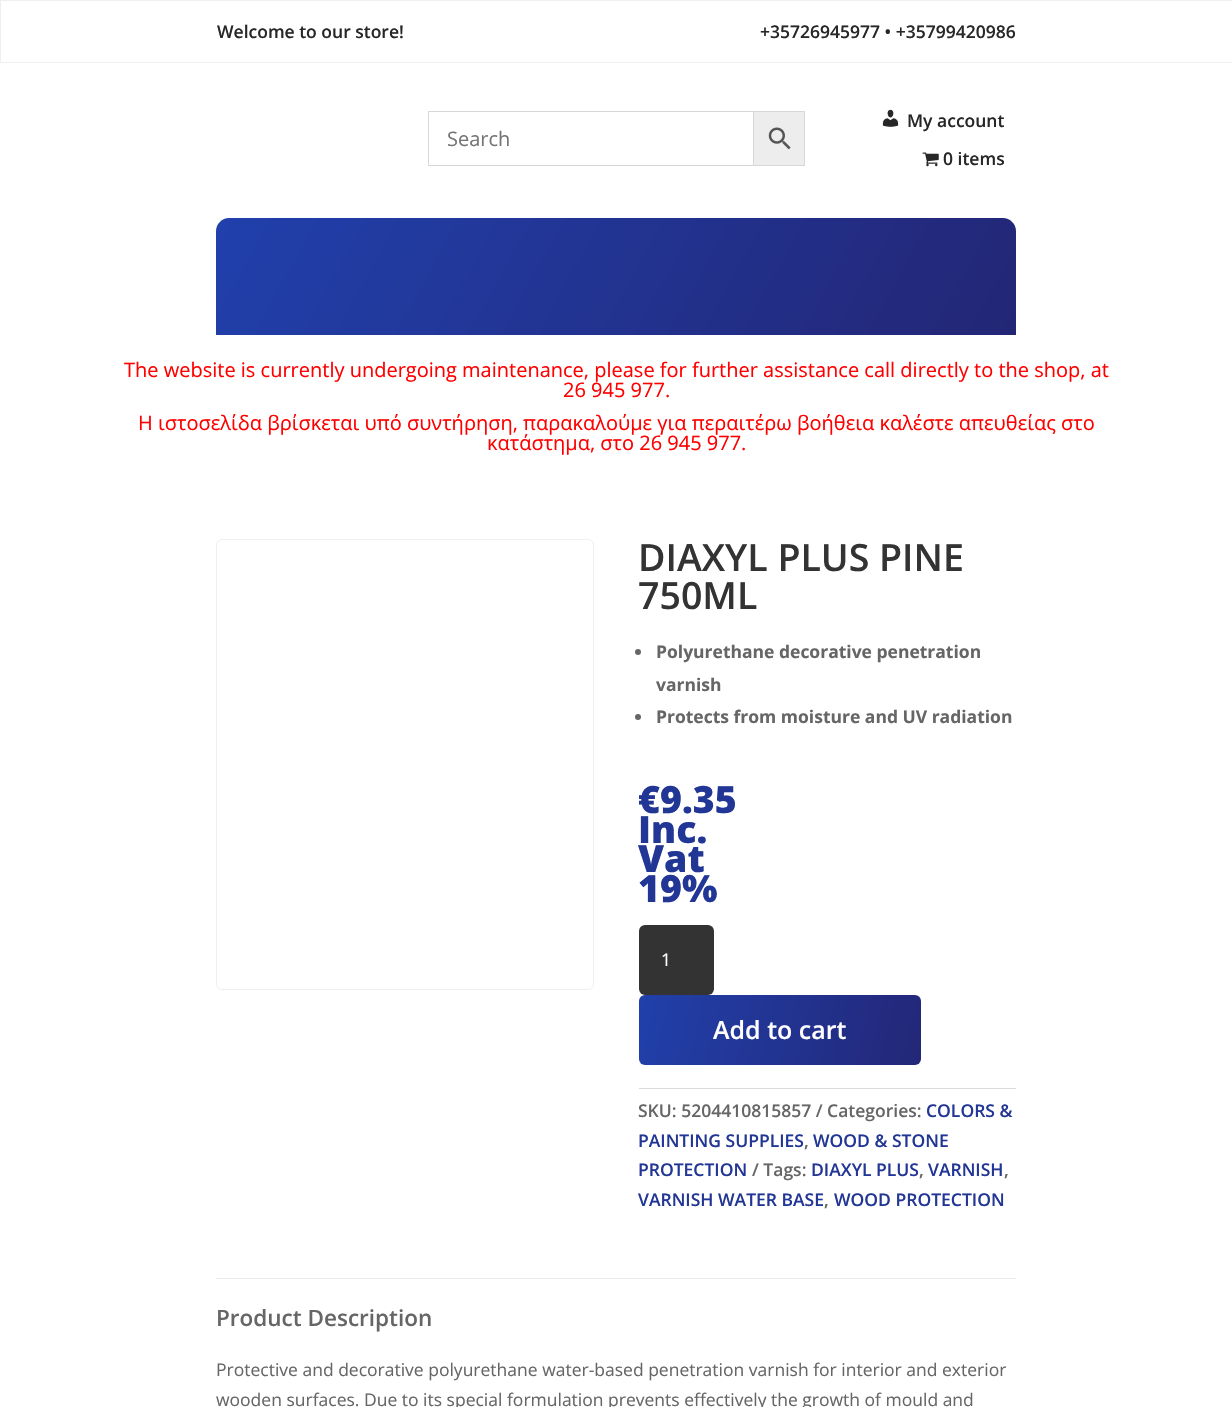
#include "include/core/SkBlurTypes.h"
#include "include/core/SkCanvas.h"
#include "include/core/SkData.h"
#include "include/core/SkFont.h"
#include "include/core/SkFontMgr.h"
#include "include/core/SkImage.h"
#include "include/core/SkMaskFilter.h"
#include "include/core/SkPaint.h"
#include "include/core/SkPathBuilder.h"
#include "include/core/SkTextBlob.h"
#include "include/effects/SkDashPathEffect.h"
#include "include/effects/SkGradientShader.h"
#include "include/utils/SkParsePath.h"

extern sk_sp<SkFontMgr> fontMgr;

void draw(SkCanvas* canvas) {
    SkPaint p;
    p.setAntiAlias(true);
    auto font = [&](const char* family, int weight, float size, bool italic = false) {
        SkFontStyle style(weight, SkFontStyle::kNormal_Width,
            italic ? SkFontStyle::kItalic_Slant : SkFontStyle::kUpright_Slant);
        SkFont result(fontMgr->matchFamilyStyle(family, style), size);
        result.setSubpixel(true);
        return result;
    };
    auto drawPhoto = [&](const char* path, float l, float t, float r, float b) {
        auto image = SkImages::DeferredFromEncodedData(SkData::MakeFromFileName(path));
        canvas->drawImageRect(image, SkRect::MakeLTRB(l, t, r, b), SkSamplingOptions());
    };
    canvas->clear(0xFFFFFFFF);
    p.setStyle(SkPaint::kStroke_Style);
    p.setStrokeWidth(1);
    p.setColor(0xFFEFEFEF);
    canvas->drawRect(SkRect::MakeLTRB(0.5f, 0.5f, 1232.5f, 62.5f), p);
    auto font1 = font("Open Sans", 600, 17.5f);
    p.setStyle(SkPaint::kFill_Style);
    p.setColor(0xFF272727);
    canvas->drawString("Welcome to our store!", 217, 38, font1, p);
    canvas->drawString("+35726945977 • +35799420986", 760, 38, font1, p);
    p.setColor(0xFFEDEDED);
    canvas->drawRect(SkRect::MakeLTRB(753.5f, 111.5f, 804.5f, 165.5f), p);
    p.setStyle(SkPaint::kStroke_Style);
    p.setColor(0xFFD8D8D8);
    canvas->drawRect(SkRect::MakeLTRB(753.5f, 111.5f, 804.5f, 165.5f), p);
    canvas->drawRect(SkRect::MakeLTRB(428.5f, 111.5f, 753.5f, 165.5f), p);
    auto font2 = font("Open Sans", 400, 20);
    p.setStyle(SkPaint::kFill_Style);
    p.setColor(0xFF757575);
    canvas->drawString("Search", 447, 146, font2, p);
    drawPhoto("media/1.png", 768, 127, 791, 150);
    drawPhoto("media/2.png", 882, 109, 899, 127);
    p.setColor(0xFF272727);
    canvas->drawString("My account", 907, 127, font1, p);
    drawPhoto("media/3.png", 922, 152, 939, 167);
    canvas->drawString("0 items", 943, 165, font1, p);
    {
        const SkColor colors[] = {0xFF2140AC, 0xFF232675};
        const float stops[] = {0, 1};
        const SkPoint ends[] = {{285, 93}, {947, 460}};
        p.setShader(SkGradientShader::MakeLinear(ends, colors, stops, 2, SkTileMode::kClamp));
        p.setAlpha(255);
    }
    canvas->drawPath(SkPathBuilder().moveTo(229, 218).lineTo(1003, 218).cubicTo(1010, 218, 1016, 224, 1016, 231).lineTo(1016, 335).lineTo(216, 335).lineTo(216, 231).cubicTo(216, 224, 222, 218, 229, 218).close().detach(), p);
    p.setShader(nullptr);
    p.setColor(0xFFFF0000);
    {
        const struct { const char* s; float x, y; } items[] = {
            {"The website is currently undergoing maintenance, please for further assistance call directly to the shop, at", 124, 377},
            {"26 945 977.", 563, 397},
            {"Η ιστοσελίδα βρίσκεται υπό συντήρηση, παρακαλούμε για περαιτέρω βοήθεια καλέστε απευθείας στο", 138, 430},
            {"κατάστημα, στο 26 945 977.", 487, 450},
        };
        for (auto [s, x, y] : items) {
            canvas->drawString(s, x, y, font2, p);
        }
    }
    p.setStyle(SkPaint::kStroke_Style);
    p.setColor(0xFFEFEFEF);
    canvas->drawRoundRect(SkRect::MakeLTRB(216.5f, 539.5f, 593.5f, 989.5f), 5.5f, 5.5f, p);
    auto font3 = font("Open Sans", 600, 37.5f);
    p.setStyle(SkPaint::kFill_Style);
    p.setColor(0xFF333333);
    canvas->drawString("DIAXYL PLUS PINE", 638, 571, font3, p);
    canvas->drawString("750ML", 638, 609, font3, p);
    p.setColor(0xFF666666);
    canvas->drawCircle(638, 652, 3, p);
    auto font4 = font("Open Sans", 700, 17.5f);
    canvas->drawString("Polyurethane decorative penetration", 656, 658, font4, p);
    canvas->drawString("varnish", 656, 691, font4, p);
    canvas->drawCircle(638, 717, 3, p);
    canvas->drawString("Protects from moisture and UV radiation", 656, 723, font4, p);
    auto font5 = font("Open Sans", 800, 37.5f);
    p.setColor(0xFF223695);
    {
        const struct { const char* s; float x, y; } items[] = {
            {"€9.35", 638, 813},
            {"Inc.", 638, 843},
            {"Vat", 638, 872},
            {"19%", 638, 902},
        };
        for (auto [s, x, y] : items) {
            canvas->drawString(s, x, y, font5, p);
        }
    }
    p.setColor(0xFF333333);
    canvas->drawRoundRect(SkRect::MakeLTRB(639, 925, 714, 995), 6, 6, p);
    auto font6 = font("Open Sans", 400, 17.5f);
    p.setColor(0xFFFFFFFF);
    canvas->drawString("1", 661, 966, font6, p);
    {
        const SkColor colors[] = {0xFF2140AB, 0xFF232777};
        const float stops[] = {0, 1};
        const SkPoint ends[] = {{638, 997}, {922, 1063}};
        p.setShader(SkGradientShader::MakeLinear(ends, colors, stops, 2, SkTileMode::kClamp));
        p.setAlpha(255);
    }
    canvas->drawRoundRect(SkRect::MakeLTRB(639, 995, 921, 1065), 6, 6, p);
    auto font7 = font("Open Sans", 600, 25);
    p.setShader(nullptr);
    p.setColor(0xFFFFFFFF);
    canvas->drawString("Add to cart", 713, 1039, font7, p);
    p.setColor(0xFFDADADA);
    canvas->drawRect(SkRect::MakeLTRB(639, 1088, 1016, 1089), p);
    p.setColor(0xFF666666);
    canvas->drawString("SKU: 5204410815857 / Categories:", 638, 1117, font1, p);
    p.setColor(0xFF223695);
    canvas->drawString("COLORS &", 926, 1117, font1, p);
    canvas->drawString("PAINTING SUPPLIES", 638, 1147, font1, p);
    p.setColor(0xFF666666);
    canvas->drawString(",", 804, 1147, font1, p);
    p.setColor(0xFF223695);
    canvas->drawString("WOOD & STONE", 813, 1147, font1, p);
    canvas->drawString("PROTECTION", 638, 1176, font1, p);
    p.setColor(0xFF666666);
    canvas->drawString("/ Tags:", 752, 1176, font1, p);
    p.setColor(0xFF223695);
    canvas->drawString("DIAXYL PLUS", 811, 1176, font1, p);
    p.setColor(0xFF666666);
    canvas->drawString(",", 919, 1176, font1, p);
    p.setColor(0xFF223695);
    canvas->drawString("VARNISH", 928, 1176, font1, p);
    p.setColor(0xFF666666);
    canvas->drawString(",", 1004, 1176, font1, p);
    p.setColor(0xFF223695);
    canvas->drawString("VARNISH WATER BASE", 638, 1206, font1, p);
    p.setColor(0xFF666666);
    canvas->drawString(",", 824, 1206, font1, p);
    p.setColor(0xFF223695);
    canvas->drawString("WOOD PROTECTION", 834, 1206, font1, p);
    p.setColor(0xFFEAEAEA);
    canvas->drawRect(SkRect::MakeLTRB(216, 1278, 1016, 1279), p);
    auto font8 = font("Open Sans", 600, 22.5f);
    p.setColor(0xFF666666);
    canvas->drawString("Product Description", 216, 1326, font8, p);
    canvas->drawString("Protective and decorative polyurethane water-based penetration varnish for interior and exterior", 216, 1376, font6, p);
    canvas->drawString("wooden surfaces. Due to its special formulation prevents effectively the growth of mould and", 216, 1406, font6, p);
}
